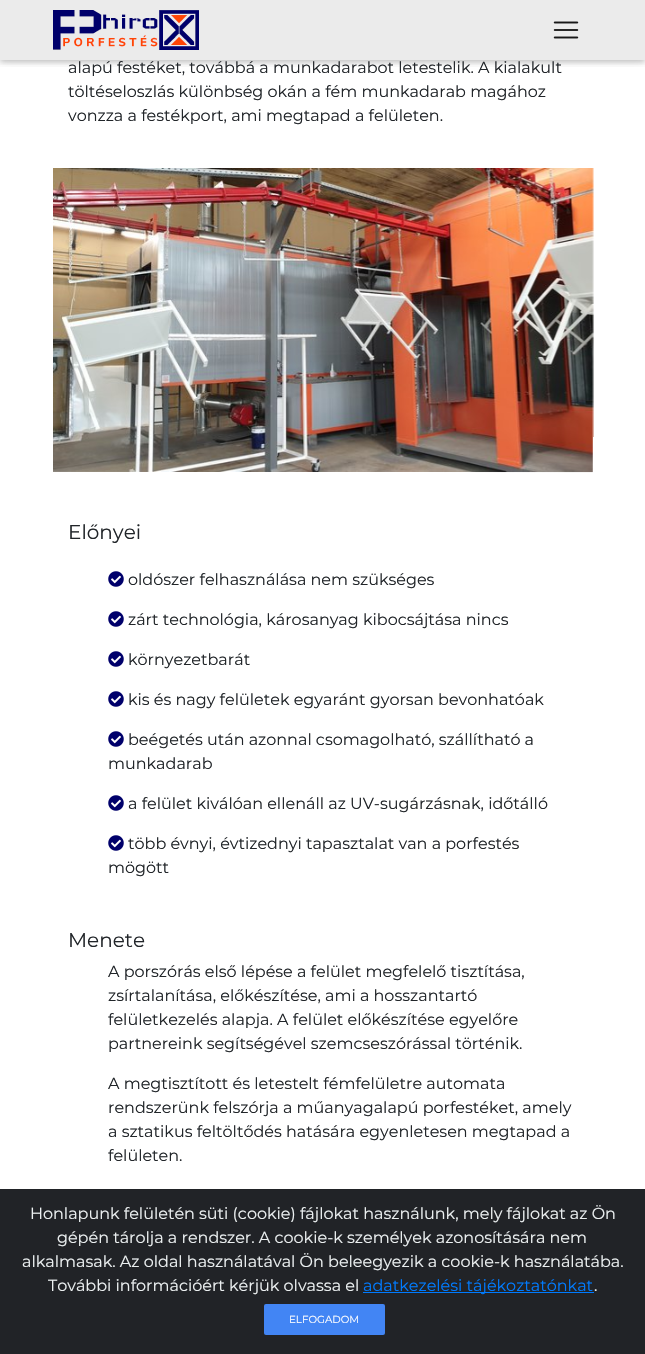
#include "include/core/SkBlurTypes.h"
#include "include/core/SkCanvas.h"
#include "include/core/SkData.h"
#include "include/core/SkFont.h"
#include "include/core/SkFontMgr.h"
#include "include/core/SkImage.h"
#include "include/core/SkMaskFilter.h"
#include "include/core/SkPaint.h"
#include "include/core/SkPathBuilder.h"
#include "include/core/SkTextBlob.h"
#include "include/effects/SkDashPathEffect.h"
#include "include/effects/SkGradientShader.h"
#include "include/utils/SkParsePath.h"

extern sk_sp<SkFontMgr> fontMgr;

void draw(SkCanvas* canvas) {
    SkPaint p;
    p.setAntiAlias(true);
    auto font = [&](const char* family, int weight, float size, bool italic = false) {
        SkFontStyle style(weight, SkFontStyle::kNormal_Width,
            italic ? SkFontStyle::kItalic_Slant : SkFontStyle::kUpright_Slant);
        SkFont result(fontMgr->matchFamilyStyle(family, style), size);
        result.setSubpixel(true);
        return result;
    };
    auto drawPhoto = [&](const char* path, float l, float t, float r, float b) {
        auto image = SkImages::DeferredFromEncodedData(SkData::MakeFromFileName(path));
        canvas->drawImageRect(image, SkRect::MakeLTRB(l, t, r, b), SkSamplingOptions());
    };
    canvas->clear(0xFFFFFFFF);
    canvas->save();
    canvas->clipRect(SkRect::MakeLTRB(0, 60, 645, 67));
    p.setColor(0x1F000000);
    p.setMaskFilter(SkMaskFilter::MakeBlur(kNormal_SkBlurStyle, 5));
    canvas->drawRect(SkRect::MakeLTRB(0, 2, 645, 62), p);
    p.setMaskFilter(nullptr);
    canvas->restore();
    canvas->save();
    canvas->clipRect(SkRect::MakeLTRB(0, 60, 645, 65));
    p.setColor(0x29000000);
    p.setMaskFilter(SkMaskFilter::MakeBlur(kNormal_SkBlurStyle, 2.5f));
    canvas->drawRect(SkRect::MakeLTRB(0, 2, 645, 62), p);
    p.setMaskFilter(nullptr);
    canvas->restore();
    p.setColor(0xE6E9E9E9);
    canvas->drawRect(SkRect::MakeLTRB(0, 0, 645, 60), p);
    drawPhoto("media/1.png", 53, 10, 199, 50);
    drawPhoto("media/2.png", 553, 21, 579, 39);
    auto font1 = font("Montserrat", 400, 16);
    p.setColor(0xFF212529);
    {
        const struct { const char* s; float x, y; } items[] = {
            {"alapú festéket, továbbá a munkadarabot letestelik. A kialakult", 68, 73},
            {"töltéseloszlás különbség okán a fém munkadarab magához", 68, 97},
            {"vonzza a festékport, ami megtapad a felületen.", 68, 121},
        };
        for (auto [s, x, y] : items) {
            canvas->drawString(s, x, y, font1, p);
        }
    }
    drawPhoto("media/3.png", 53, 168, 594, 473);
    auto font2 = font("Montserrat", 400, 20);
    canvas->drawString("Előnyei", 68, 539, font2, p);
    drawPhoto("media/4.png", 108, 571, 124, 587);
    canvas->drawString("oldószer felhasználása nem szükséges", 128, 585, font1, p);
    drawPhoto("media/4.png", 108, 611, 124, 627);
    canvas->drawString("zárt technológia, károsanyag kibocsájtása nincs", 128, 625, font1, p);
    drawPhoto("media/4.png", 108, 651, 124, 667);
    canvas->drawString("környezetbarát", 128, 665, font1, p);
    drawPhoto("media/4.png", 108, 691, 124, 707);
    canvas->drawString("kis és nagy felületek egyaránt gyorsan bevonhatóak", 128, 705, font1, p);
    drawPhoto("media/4.png", 108, 731, 124, 747);
    canvas->drawString("beégetés után azonnal csomagolható, szállítható a", 128, 745, font1, p);
    canvas->drawString("munkadarab", 108, 769, font1, p);
    drawPhoto("media/4.png", 108, 795, 124, 811);
    canvas->drawString("a felület kiválóan ellenáll az UV-sugárzásnak, időtálló", 128, 809, font1, p);
    drawPhoto("media/4.png", 108, 835, 124, 851);
    canvas->drawString("több évnyi, évtizednyi tapasztalat van a porfestés", 128, 849, font1, p);
    canvas->drawString("mögött", 108, 873, font1, p);
    canvas->drawString("Menete", 68, 947, font2, p);
    {
        const struct { const char* s; float x, y; } items[] = {
            {"A porszórás első lépése a felület megfelelő tisztítása,", 108, 977},
            {"zsírtalanítása, előkészítése, ami a hosszantartó", 108, 1001},
            {"felületkezelés alapja. A felület előkészítése egyelőre", 108, 1025},
            {"partnereink segítségével szemcseszórással történik.", 108, 1049},
            {"A megtisztított és letestelt fémfelületre automata", 108, 1089},
            {"rendszerünk felszórja a műanyagalapú porfestéket, amely", 108, 1113},
            {"a sztatikus feltöltődés hatására egyenletesen megtapad a", 108, 1137},
            {"felületen.", 108, 1161},
        };
        for (auto [s, x, y] : items) {
            canvas->drawString(s, x, y, font1, p);
        }
    }
    p.setColor(0xFF212327);
    canvas->drawRect(SkRect::MakeLTRB(0, 1189, 645, 1354), p);
    p.setColor(0xFFECF0F1);
    {
        const struct { const char* s; float x, y; } items[] = {
            {"Honlapunk felületén süti (cookie) fájlokat használunk, mely fájlokat az Ön", 30, 1219},
            {"gépén tárolja a rendszer. A cookie-k személyek azonosítására nem", 57, 1243},
            {"alkalmasak. Az oldal használatával Ön beleegyezik a cookie-k használatába.", 22, 1267},
            {"További információért kérjük olvassa el", 48, 1291},
        };
        for (auto [s, x, y] : items) {
            canvas->drawString(s, x, y, font1, p);
        }
    }
    p.setColor(0xFF007BFF);
    canvas->drawRect(SkRect::MakeLTRB(363, 1292, 594, 1293), p);
    canvas->drawString("adatkezelési tájékoztatónkat", 363, 1291, font1, p);
    p.setColor(0xFFECF0F1);
    canvas->drawString(".", 594, 1291, font1, p);
    p.setColor(0xFF4285F4);
    canvas->drawRoundRect(SkRect::MakeLTRB(264, 1304, 385, 1335), 2, 2, p);
    auto font3 = font("Montserrat", 400, 10.25f);
    p.setColor(0xFFFFFFFF);
    canvas->drawString("ELFOGADOM", 289, 1323, font3, p);
}
